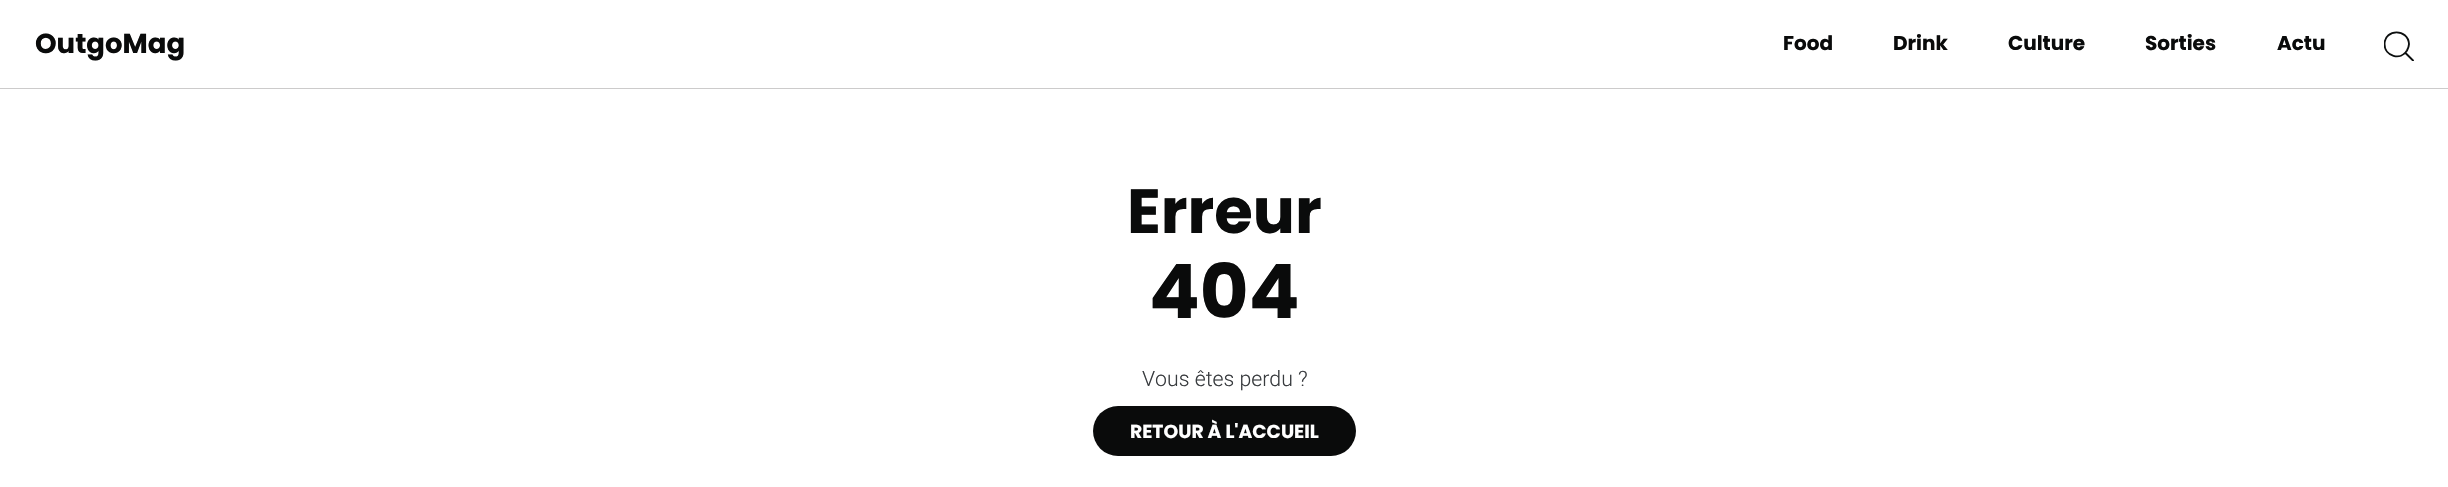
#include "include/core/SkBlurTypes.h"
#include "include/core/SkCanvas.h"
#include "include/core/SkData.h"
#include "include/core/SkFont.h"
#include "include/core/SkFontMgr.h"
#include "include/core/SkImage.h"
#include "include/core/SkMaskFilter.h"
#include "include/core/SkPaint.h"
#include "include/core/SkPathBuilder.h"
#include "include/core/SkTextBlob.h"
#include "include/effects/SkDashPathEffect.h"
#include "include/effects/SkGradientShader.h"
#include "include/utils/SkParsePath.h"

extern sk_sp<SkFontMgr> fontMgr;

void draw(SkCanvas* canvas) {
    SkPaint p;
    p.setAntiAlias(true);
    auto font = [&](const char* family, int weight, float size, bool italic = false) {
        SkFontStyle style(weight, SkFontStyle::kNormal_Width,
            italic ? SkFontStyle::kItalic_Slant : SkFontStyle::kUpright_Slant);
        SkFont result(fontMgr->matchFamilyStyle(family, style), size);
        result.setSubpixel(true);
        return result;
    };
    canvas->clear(0xFFFFFFFF);
    p.setColor(0xFFCCCBCB);
    canvas->drawRect(SkRect::MakeLTRB(0, 88, 2448, 89), p);
    auto font1 = font("Poppins", 700, 27.5f);
    p.setColor(0xFF0A0B0B);
    canvas->drawString("OutgoMag", 35, 53, font1, p);
    auto font2 = font("Poppins", 700, 20);
    {
        const struct { const char* s; float x, y; } items[] = {
            {"Food", 1783, 50},
            {"Drink", 1893, 50},
            {"Culture", 2008, 50},
            {"Sorties", 2145, 50},
            {"Actu", 2277, 50},
        };
        for (auto [s, x, y] : items) {
            canvas->drawString(s, x, y, font2, p);
        }
    }
    canvas->save();
    canvas->clipRect(SkRect::MakeLTRB(2384, 31, 2414, 61));
    p.setStyle(SkPaint::kStroke_Style);
    p.setStrokeWidth(1.9f);
    p.setStrokeCap(SkPaint::kRound_Cap);
    p.setStrokeJoin(SkPaint::kRound_Join);
    p.setColor(0xFF0C0F0F);
    canvas->drawPath(SkPathBuilder().moveTo(2406, 53.5f).lineTo(2413, 60.5f).close().moveTo(2384.5f, 44).cubicTo(2384.5f, 56.5f, 2401, 61, 2407, 50.5f).cubicTo(2408, 48.5f, 2409, 46.5f, 2409, 44).cubicTo(2408, 28.5f, 2385, 28.5f, 2384.5f, 44).close().detach(), p);
    canvas->restore();
    auto font3 = font("Poppins", 700, 62.5f);
    p.setStyle(SkPaint::kFill_Style);
    p.setColor(0xFF0A0B0B);
    canvas->drawString("Erreur", 1127, 233, font3, p);
    auto font4 = font("Poppins", 700, 75);
    canvas->drawString("404", 1149, 318, font4, p);
    auto font5 = font("Roboto", 300, 21.25f);
    p.setColor(0xFF393C3F);
    canvas->drawString("Vous êtes perdu ?", 1142, 386, font5, p);
    p.setColor(0xFF0A0B0B);
    canvas->drawRoundRect(SkRect::MakeLTRB(1093, 406, 1356, 456), 25, 25, p);
    auto font6 = font("Poppins", 700, 18.75f);
    p.setColor(0xFFFFFFFF);
    canvas->drawString("RETOUR À L'ACCUEIL", 1130, 438, font6, p);
}
